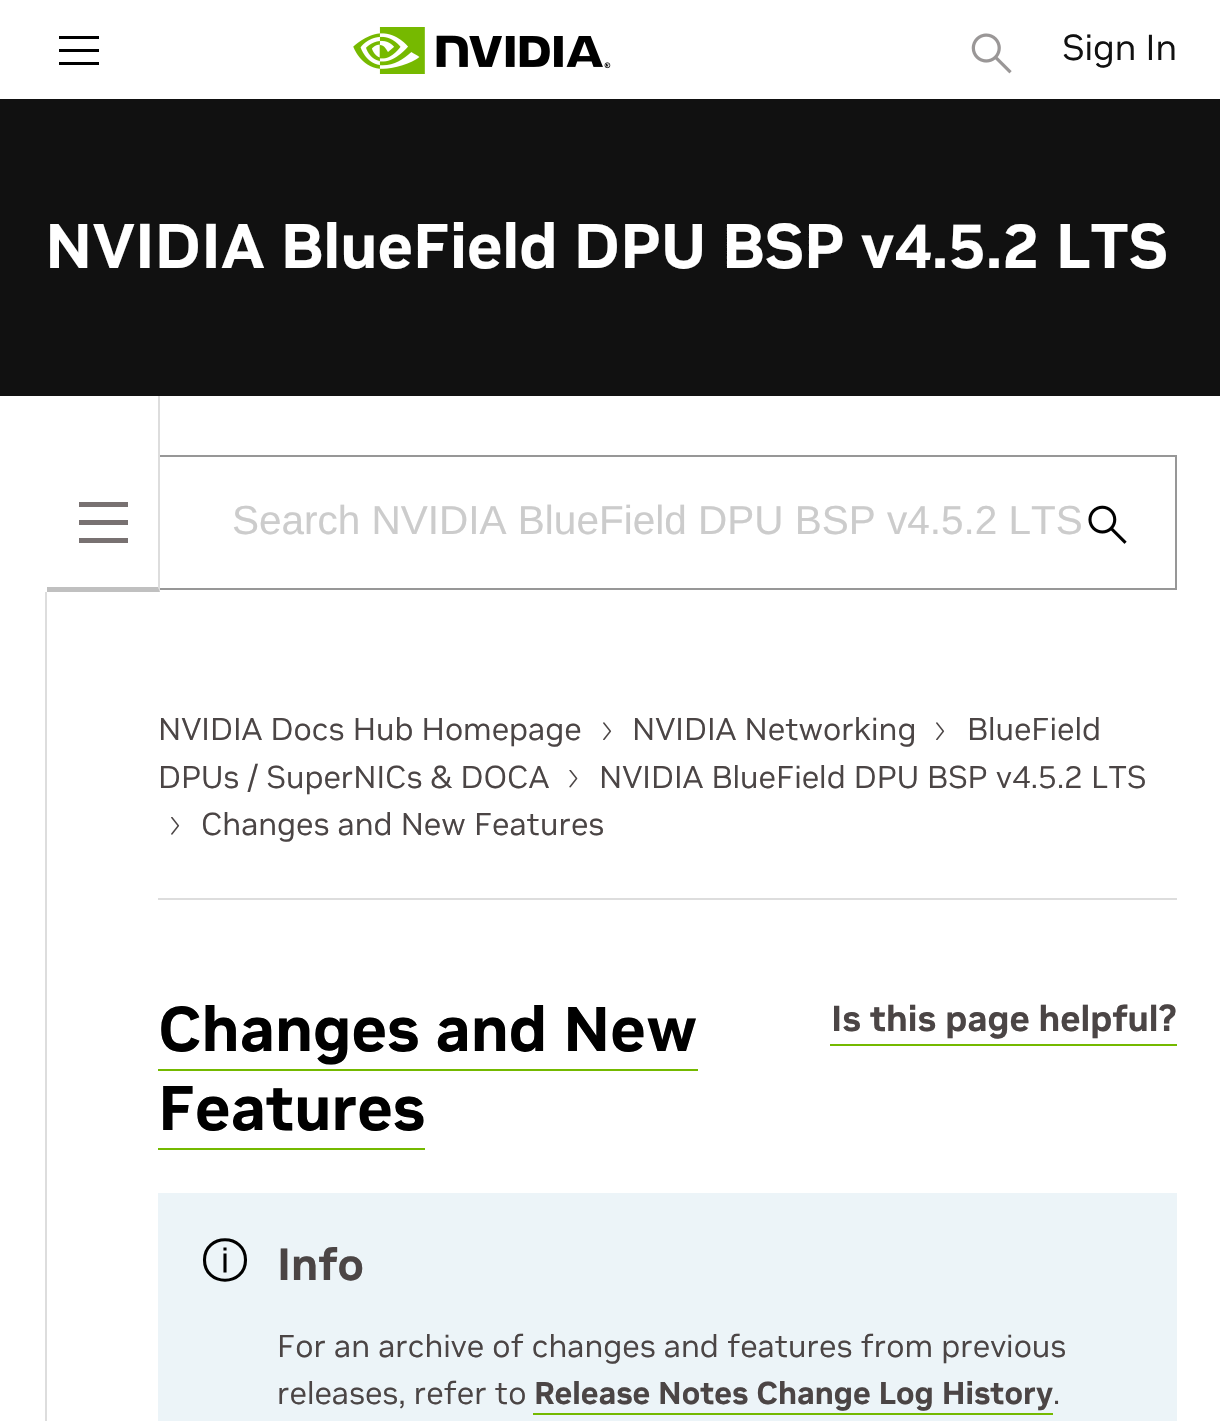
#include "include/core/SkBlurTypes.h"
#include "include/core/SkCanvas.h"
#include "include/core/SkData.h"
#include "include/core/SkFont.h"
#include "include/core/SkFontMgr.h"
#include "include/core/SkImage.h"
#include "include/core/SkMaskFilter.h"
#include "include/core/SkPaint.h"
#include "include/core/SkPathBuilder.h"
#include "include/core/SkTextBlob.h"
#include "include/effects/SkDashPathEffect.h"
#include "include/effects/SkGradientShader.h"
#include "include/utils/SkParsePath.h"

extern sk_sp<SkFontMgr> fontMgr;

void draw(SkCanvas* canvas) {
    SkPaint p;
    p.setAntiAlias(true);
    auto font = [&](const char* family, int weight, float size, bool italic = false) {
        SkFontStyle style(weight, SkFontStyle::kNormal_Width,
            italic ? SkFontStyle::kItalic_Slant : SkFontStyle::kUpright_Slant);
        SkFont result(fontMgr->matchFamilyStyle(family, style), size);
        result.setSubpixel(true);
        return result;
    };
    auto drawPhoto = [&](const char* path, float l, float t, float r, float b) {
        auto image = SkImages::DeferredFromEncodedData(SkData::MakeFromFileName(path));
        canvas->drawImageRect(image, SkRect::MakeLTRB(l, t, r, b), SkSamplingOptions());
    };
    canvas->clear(0xFFFFFFFF);
    canvas->save();
    canvas->clipRect(SkRect::MakeLTRB(59, 36, 99, 65));
    p.setColor(0xFF000000);
    canvas->drawPath(SkPathBuilder(SkPathFillType::kEvenOdd).moveTo(58, 52).lineTo(58, 49).lineTo(99, 49).lineTo(99, 52).close().moveTo(58, 39).lineTo(58, 36).lineTo(99, 36).lineTo(99, 39).close().moveTo(58, 65).lineTo(58, 62).lineTo(99, 62).lineTo(99, 65).close().detach(), p);
    canvas->restore();
    drawPhoto("media/1.png", 353, 27, 611, 74);
    drawPhoto("media/2.png", 971, 33, 1012, 74);
    auto font1 = font("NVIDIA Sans", 400, 36);
    p.setColor(0xFF111111);
    canvas->drawString("Sign In", 1062, 60, font1, p);
    canvas->drawRect(SkRect::MakeLTRB(0, 99, 1220, 396), p);
    auto font2 = font("NVIDIA Sans", 700, 63);
    p.setColor(0xFFFFFFFF);
    canvas->drawString("NVIDIA BlueField DPU BSP v4.5.2 LTS", 45, 268, font2, p);
    p.setStyle(SkPaint::kStroke_Style);
    p.setStrokeWidth(2);
    p.setColor(0xFF979797);
    canvas->drawRect(SkRect::MakeLTRB(159, 456, 1176, 589), p);
    p.setStyle(SkPaint::kFill_Style);
    p.setColor(0xFFFFFFFF);
    canvas->drawRect(SkRect::MakeLTRB(158, 455, 160, 590), p);
    p.setColor(0xFFDDDDDD);
    canvas->drawPath(SkPathBuilder().moveTo(160, 396).lineTo(160, 592).lineTo(158, 587).lineTo(158, 396).close().detach(), p);
    p.setColor(0xFFC0C0C0);
    canvas->drawPath(SkPathBuilder().moveTo(160, 592).lineTo(47, 592).lineTo(47, 587).lineTo(158, 587).close().detach(), p);
    {
        const struct { float l, t, r, b; SkColor color; } items[] = {
            {79, 502, 128, 507, 0xFF787171},
            {79, 520, 128, 525, 0xFF787171},
            {79, 538, 128, 543, 0xFF787171},
            {45, 592, 47, 1421, 0xFFDDDDDD},
        };
        for (auto [l, t, r, b, color] : items) {
            p.setColor(color);
            canvas->drawRect(SkRect::MakeLTRB(l, t, r, b), p);
        }
    }
    auto font3 = font("Liberation Sans", 400, 40.5f);
    p.setColor(0xFFCCCCCC);
    canvas->drawString("Search NVIDIA BlueField DPU BSP v4.5.2 LTS", 232, 534, font3, p);
    drawPhoto("media/3.png", 1088, 505, 1127, 544);
    auto font4 = font("NVIDIA Sans", 400, 31.5f);
    p.setColor(0xFF4B4545);
    canvas->drawString("NVIDIA Docs Hub Homepage", 158, 740, font4, p);
    drawPhoto("media/4.png", 603, 722, 612, 740);
    canvas->drawString("NVIDIA Networking", 632, 740, font4, p);
    drawPhoto("media/4.png", 936, 722, 945, 740);
    canvas->drawString("BlueField", 967, 740, font4, p);
    canvas->drawString("DPUs / SuperNICs & DOCA", 158, 788, font4, p);
    drawPhoto("media/5.png", 569, 770, 578, 788);
    canvas->drawString("NVIDIA BlueField DPU BSP v4.5.2 LTS", 599, 788, font4, p);
    drawPhoto("media/6.png", 171, 817, 180, 835);
    canvas->drawString("Changes and New Features", 201, 835, font4, p);
    p.setColor(0xFFDDDDDD);
    canvas->drawRect(SkRect::MakeLTRB(158, 898, 1177, 900), p);
    p.setColor(0xFF000000);
    canvas->drawString("Changes and New", 158, 1051, font2, p);
    p.setColor(0xFF74B900);
    canvas->drawRect(SkRect::MakeLTRB(158, 1069, 698, 1071), p);
    p.setColor(0xFF000000);
    canvas->drawString("Features", 158, 1130, font2, p);
    p.setColor(0xFF74B900);
    canvas->drawRect(SkRect::MakeLTRB(158, 1148, 425, 1150), p);
    canvas->drawRect(SkRect::MakeLTRB(830, 1044, 1177, 1046), p);
    auto font5 = font("NVIDIA Sans", 700, 36);
    p.setColor(0xFF4B4545);
    canvas->drawString("Is this page helpful?", 831, 1031, font5, p);
    p.setColor(0xFFECF4F8);
    canvas->drawRect(SkRect::MakeLTRB(158, 1193, 1177, 1421), p);
    p.setStyle(SkPaint::kStroke_Style);
    p.setStrokeWidth(3.1f);
    p.setColor(0xFF000000);
    canvas->drawPath(SkPathBuilder().moveTo(225, 1250.5f).lineTo(225, 1247.5f).moveTo(225, 1272.5f).lineTo(225, 1253.5f).moveTo(245.5f, 1260).cubicTo(245.5f, 1287, 204.5f, 1287, 204.5f, 1260).cubicTo(204.5f, 1233, 245.5f, 1233, 245.5f, 1260).close().detach(), p);
    auto font6 = font("NVIDIA Sans", 700, 45);
    p.setStyle(SkPaint::kFill_Style);
    p.setColor(0xFF4B4545);
    canvas->drawString("Info", 277, 1280, font6, p);
    canvas->drawString("For an archive of changes and features from previous", 277, 1357, font4, p);
    canvas->drawString("releases, refer to", 277, 1404, font4, p);
    auto font7 = font("NVIDIA Sans", 700, 31.5f);
    canvas->drawString("Release Notes Change Log History", 534, 1404, font7, p);
    p.setColor(0xFF74B900);
    canvas->drawRect(SkRect::MakeLTRB(533, 1413, 1053, 1415), p);
    p.setColor(0xFF4B4545);
    canvas->drawString(".", 1053, 1404, font4, p);
}
